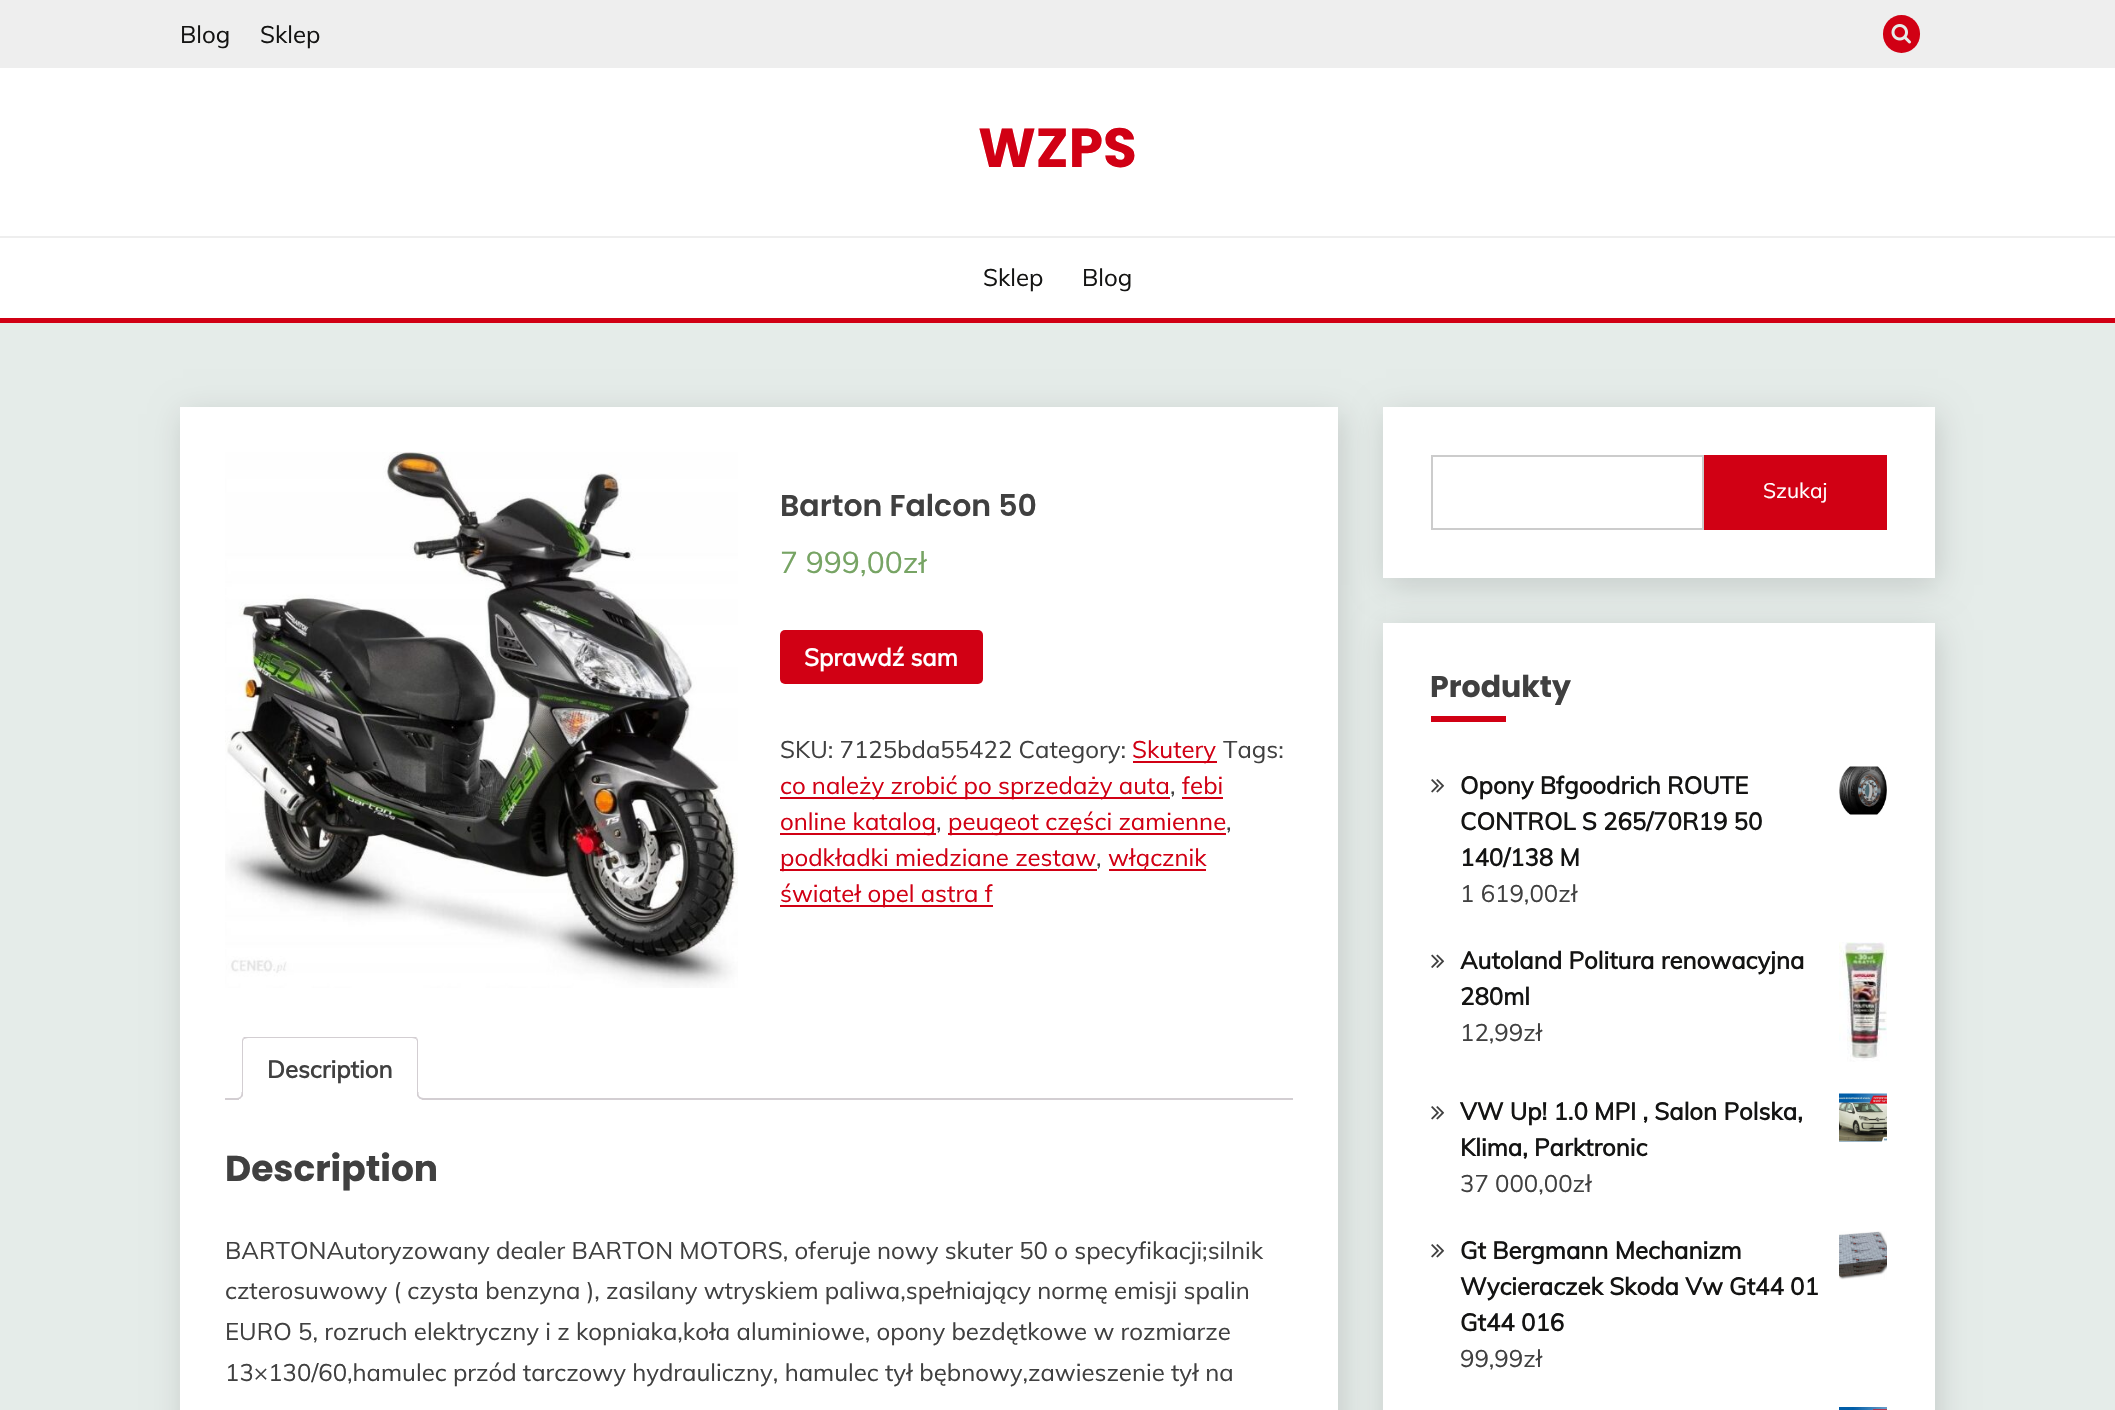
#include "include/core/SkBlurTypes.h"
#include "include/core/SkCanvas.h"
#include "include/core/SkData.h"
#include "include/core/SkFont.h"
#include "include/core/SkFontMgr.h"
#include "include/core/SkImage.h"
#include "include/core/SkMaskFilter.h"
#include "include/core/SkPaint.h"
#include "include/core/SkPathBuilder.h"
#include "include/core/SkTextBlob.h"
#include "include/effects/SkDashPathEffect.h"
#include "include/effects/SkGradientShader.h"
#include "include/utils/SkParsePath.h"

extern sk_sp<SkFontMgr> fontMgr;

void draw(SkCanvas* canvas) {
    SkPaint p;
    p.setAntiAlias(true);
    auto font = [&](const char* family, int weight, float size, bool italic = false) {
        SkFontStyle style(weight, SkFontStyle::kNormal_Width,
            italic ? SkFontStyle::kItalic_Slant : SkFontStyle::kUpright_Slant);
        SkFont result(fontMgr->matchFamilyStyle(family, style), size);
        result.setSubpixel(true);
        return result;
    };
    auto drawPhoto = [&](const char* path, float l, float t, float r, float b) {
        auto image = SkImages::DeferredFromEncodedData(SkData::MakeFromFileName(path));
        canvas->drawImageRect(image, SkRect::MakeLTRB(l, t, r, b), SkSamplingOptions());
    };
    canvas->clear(0xFFE5ECE9);
    p.setColor(0xFFFFFFFF);
    canvas->drawRect(SkRect::MakeLTRB(0, 68, 2115, 318), p);
    p.setColor(0xFFEEEEEE);
    canvas->drawRect(SkRect::MakeLTRB(0, 0, 2115, 68), p);
    auto font1 = font("Muli", 400, 24);
    p.setColor(0xFF141413);
    canvas->drawString("Blog", 180, 43, font1, p);
    canvas->drawString("Sklep", 260, 43, font1, p);
    p.setColor(0xFFD10014);
    canvas->drawRoundRect(SkRect::MakeLTRB(1883, 15, 1920, 53), 18.5f, 18.5f, p);
    drawPhoto("media/1.png", 1891, 24, 1911, 44);
    p.setColor(0xFFEEEEEE);
    canvas->drawRect(SkRect::MakeLTRB(0, 236, 2115, 238), p);
    auto font2 = font("Poppins", 700, 55);
    p.setColor(0xFFD10014);
    canvas->drawString("WZPS", 978, 167, font2, p);
    canvas->drawRect(SkRect::MakeLTRB(0, 318, 2115, 323), p);
    p.setColor(0xFF141413);
    canvas->drawString("Sklep", 983, 286, font1, p);
    canvas->drawString("Blog", 1082, 286, font1, p);
    p.setColor(0x24000000);
    p.setMaskFilter(SkMaskFilter::MakeBlur(kNormal_SkBlurStyle, 15));
    canvas->drawRect(SkRect::MakeLTRB(183, 414, 1341, 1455), p);
    p.setMaskFilter(nullptr);
    p.setColor(0xFFFFFFFF);
    canvas->drawRect(SkRect::MakeLTRB(180, 407, 1338, 1410), p);
    drawPhoto("media/2.png", 225, 451, 738, 988);
    auto font3 = font("Poppins", 600, 30);
    p.setColor(0xFF404040);
    canvas->drawString("Barton Falcon 50", 780, 516, font3, p);
    auto font4 = font("Muli", 400, 30);
    p.setColor(0xFF77A464);
    canvas->drawString("7 999,00zł", 780, 573, font4, p);
    p.setColor(0xFFD10014);
    canvas->drawRoundRect(SkRect::MakeLTRB(780, 630, 983, 684), 5, 5, p);
    auto font5 = font("Muli", 700, 24);
    p.setColor(0xFFFFFFFF);
    canvas->drawString("Sprawdź sam", 804, 666, font5, p);
    p.setColor(0xFF404040);
    canvas->drawString("SKU: 7125bda55422 Category:", 780, 758, font1, p);
    p.setColor(0xFFD10014);
    canvas->drawRect(SkRect::MakeLTRB(1133, 761, 1217, 763), p);
    canvas->drawString("Skutery", 1132, 758, font1, p);
    p.setColor(0xFF404040);
    canvas->drawString("Tags:", 1223, 758, font1, p);
    p.setColor(0xFFD10014);
    canvas->drawRect(SkRect::MakeLTRB(780, 797, 1170, 799), p);
    canvas->drawString("co należy zrobić po sprzedaży auta", 780, 794, font1, p);
    p.setColor(0xFF404040);
    canvas->drawString(",", 1170, 794, font1, p);
    p.setColor(0xFFD10014);
    canvas->drawRect(SkRect::MakeLTRB(1182, 797, 1223, 799), p);
    canvas->drawString("febi", 1182, 794, font1, p);
    canvas->drawRect(SkRect::MakeLTRB(780, 833, 936, 835), p);
    canvas->drawString("online katalog", 780, 830, font1, p);
    p.setColor(0xFF404040);
    canvas->drawString(",", 936, 830, font1, p);
    p.setColor(0xFFD10014);
    canvas->drawRect(SkRect::MakeLTRB(948, 833, 1226, 835), p);
    canvas->drawString("peugeot części zamienne", 948, 830, font1, p);
    p.setColor(0xFF404040);
    canvas->drawString(",", 1226, 830, font1, p);
    p.setColor(0xFFD10014);
    canvas->drawRect(SkRect::MakeLTRB(780, 869, 1097, 871), p);
    canvas->drawString("podkładki miedziane zestaw", 780, 866, font1, p);
    p.setColor(0xFF404040);
    canvas->drawString(",", 1096, 866, font1, p);
    p.setColor(0xFFD10014);
    canvas->drawRect(SkRect::MakeLTRB(1109, 869, 1206, 871), p);
    canvas->drawString("włącznik", 1108, 866, font1, p);
    canvas->drawRect(SkRect::MakeLTRB(780, 905, 993, 907), p);
    canvas->drawString("świateł opel astra f", 780, 902, font1, p);
    p.setColor(0xFFD3CED2);
    canvas->drawRect(SkRect::MakeLTRB(225, 1098, 1293, 1100), p);
    p.setColor(0xFFFFFFFF);
    canvas->drawPath(SkPathBuilder().moveTo(248, 1037).lineTo(413, 1037).cubicTo(416.5f, 1037, 419, 1039.5f, 419, 1043).lineTo(419, 1100).lineTo(242, 1100).lineTo(242, 1043).cubicTo(242, 1039.5f, 244.5f, 1037, 248, 1037).close().detach(), p);
    canvas->save();
    canvas->clipRect(SkRect::MakeLTRB(225, 1037, 1293, 1100));
    p.setColor(0xFFD3CED2);
    canvas->drawPath(SkPathBuilder().moveTo(248, 1038).cubicTo(246, 1038, 245, 1039, 244, 1039).lineTo(243, 1038).lineTo(245, 1036).lineTo(386, 1036).cubicTo(397, 1036, 411, 1030, 417, 1038).lineTo(416, 1039).cubicTo(415, 1039, 414, 1038, 412, 1038).close().detach(), p);
    canvas->restore();
    canvas->drawPath(SkPathBuilder().moveTo(417, 1038).cubicTo(418, 1039, 418, 1041, 418, 1042).lineTo(418, 1099).lineTo(417, 1098).lineTo(417, 1041).lineTo(416, 1039).close().detach(), p);
    p.setColor(0xFFFFFFFF);
    canvas->drawPath(SkPathBuilder().moveTo(242, 1100).lineTo(243, 1098).lineTo(417, 1098).lineTo(418, 1099).lineTo(418, 1100).close().detach(), p);
    p.setColor(0xFFD3CED2);
    canvas->drawPath(SkPathBuilder().moveTo(242, 1099).lineTo(242, 1042).cubicTo(242, 1041, 242, 1039, 243, 1038).lineTo(244, 1039).lineTo(243, 1041).lineTo(243, 1098).close().detach(), p);
    p.setColor(0xFF404040);
    canvas->drawString("Description", 267, 1078, font5, p);
    canvas->save();
    canvas->clipRect(SkRect::MakeLTRB(225, 1037, 1293, 1100));
    p.setColor(0xFFFFFFFF);
    canvas->drawPath(SkPathBuilder().moveTo(239, 1099).lineTo(239, 1103).cubicTo(244.5f, 1103, 246, 1100, 246, 1095).lineTo(243, 1095).cubicTo(242.5f, 1097, 241, 1098.5f, 239, 1099).close().detach(), p);
    canvas->restore();
    p.setColor(0xFFD3CED2);
    canvas->drawPath(SkPathBuilder(SkPathFillType::kEvenOdd).moveTo(235.5f, 1092).lineTo(243, 1092).cubicTo(243, 1097.5f, 241, 1099.5f, 235.5f, 1099.5f).close().moveTo(235.5f, 1092).lineTo(241.5f, 1092).cubicTo(241.5f, 1096.5f, 240, 1098, 235.5f, 1098).close().detach(), p);
    canvas->save();
    canvas->clipRect(SkRect::MakeLTRB(225, 1037, 1293, 1100));
    p.setColor(0xFFFFFFFF);
    canvas->drawPath(SkPathBuilder().moveTo(414, 1095).cubicTo(414, 1101, 416, 1103, 422, 1103).lineTo(422, 1099.5f).cubicTo(419.5f, 1099, 418, 1097.5f, 417, 1095).close().detach(), p);
    canvas->restore();
    p.setColor(0xFFD3CED2);
    canvas->drawPath(SkPathBuilder(SkPathFillType::kEvenOdd).moveTo(417, 1092).lineTo(424.5f, 1092).lineTo(424.5f, 1099.5f).cubicTo(420.5f, 1099.5f, 417, 1098, 417, 1093.5f).close().moveTo(418.5f, 1092).lineTo(424.5f, 1092).lineTo(424.5f, 1098).cubicTo(421.5f, 1098, 418.5f, 1097, 418.5f, 1093.5f).close().detach(), p);
    auto font6 = font("Poppins", 700, 36);
    p.setColor(0xFF404040);
    canvas->drawString("Description", 225, 1181, font6, p);
    {
        const struct { const char* s; float x, y; } items[] = {
            {"BARTONAutoryzowany dealer BARTON MOTORS, oferuje nowy skuter 50 o specyfikacji;silnik", 225, 1259},
            {"czterosuwowy ( czysta benzyna ), zasilany wtryskiem paliwa,spełniający normę emisji spalin", 225, 1299},
            {"EURO 5, rozruch elektryczny i z kopniaka,koła aluminiowe, opony bezdętkowe w rozmiarze", 225, 1340},
            {"13×130/60,hamulec przód tarczowy hydrauliczny, hamulec tył bębnowy,zawieszenie tył na", 225, 1381},
        };
        for (auto [s, x, y] : items) {
            canvas->drawString(s, x, y, font1, p);
        }
    }
    p.setColor(0x24000000);
    p.setMaskFilter(SkMaskFilter::MakeBlur(kNormal_SkBlurStyle, 15));
    canvas->drawRect(SkRect::MakeLTRB(1386, 414, 1938, 585), p);
    p.setMaskFilter(nullptr);
    p.setColor(0xFFFFFFFF);
    canvas->drawRect(SkRect::MakeLTRB(1383, 407, 1935, 578), p);
    p.setStyle(SkPaint::kStroke_Style);
    p.setStrokeWidth(2);
    p.setColor(0xFFCCCCCC);
    canvas->drawRect(SkRect::MakeLTRB(1432, 456, 1703, 529), p);
    p.setStyle(SkPaint::kFill_Style);
    p.setColor(0xFFD10014);
    canvas->drawRect(SkRect::MakeLTRB(1704, 455, 1887, 530), p);
    auto font7 = font("Muli", 400, 21);
    p.setColor(0xFFFFFFFF);
    canvas->drawString("Szukaj", 1763, 498, font7, p);
    p.setColor(0x24000000);
    p.setMaskFilter(SkMaskFilter::MakeBlur(kNormal_SkBlurStyle, 15));
    canvas->drawRect(SkRect::MakeLTRB(1386, 630, 1938, 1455), p);
    p.setMaskFilter(nullptr);
    p.setColor(0xFFFFFFFF);
    canvas->drawRect(SkRect::MakeLTRB(1383, 623, 1935, 1410), p);
    auto font8 = font("Poppins", 700, 30);
    p.setColor(0xFF404040);
    canvas->drawString("Produkty", 1430, 697, font8, p);
    p.setColor(0xFFD10014);
    canvas->drawRect(SkRect::MakeLTRB(1431, 716, 1506, 722), p);
    drawPhoto("media/3.png", 1431, 779, 1445, 793);
    p.setColor(0xFF141413);
    canvas->drawString("Opony Bfgoodrich ROUTE", 1460, 794, font5, p);
    drawPhoto("media/4.png", 1839, 766, 1887, 815);
    canvas->drawString("CONTROL S 265/70R19 50", 1460, 830, font5, p);
    canvas->drawString("140/138 M", 1460, 866, font5, p);
    p.setColor(0xFF404040);
    canvas->drawString("1 619,00zł", 1460, 902, font1, p);
    drawPhoto("media/5.png", 1431, 954, 1445, 968);
    p.setColor(0xFF141413);
    canvas->drawString("Autoland Politura renowacyjna", 1460, 969, font5, p);
    drawPhoto("media/6.png", 1839, 942, 1887, 1062);
    canvas->drawString("280ml", 1460, 1005, font5, p);
    p.setColor(0xFF404040);
    canvas->drawString("12,99zł", 1460, 1041, font1, p);
    drawPhoto("media/3.png", 1431, 1106, 1445, 1120);
    p.setColor(0xFF141413);
    canvas->drawString("VW Up! 1.0 MPI , Salon Polska,", 1460, 1120, font5, p);
    drawPhoto("media/7.png", 1839, 1093, 1887, 1142);
    canvas->drawString("Klima, Parktronic", 1460, 1156, font5, p);
    p.setColor(0xFF404040);
    canvas->drawString("37 000,00zł", 1460, 1192, font1, p);
    drawPhoto("media/3.png", 1431, 1244, 1445, 1258);
    p.setColor(0xFF141413);
    canvas->drawString("Gt Bergmann Mechanizm", 1460, 1259, font5, p);
    drawPhoto("media/8.png", 1839, 1231, 1887, 1280);
    canvas->drawString("Wycieraczek Skoda Vw Gt44 01", 1460, 1295, font5, p);
    canvas->drawString("Gt44 016", 1460, 1331, font5, p);
    p.setColor(0xFF404040);
    canvas->drawString("99,99zł", 1460, 1367, font1, p);
    drawPhoto("media/9.png", 1839, 1407, 1887, 1410);
}
